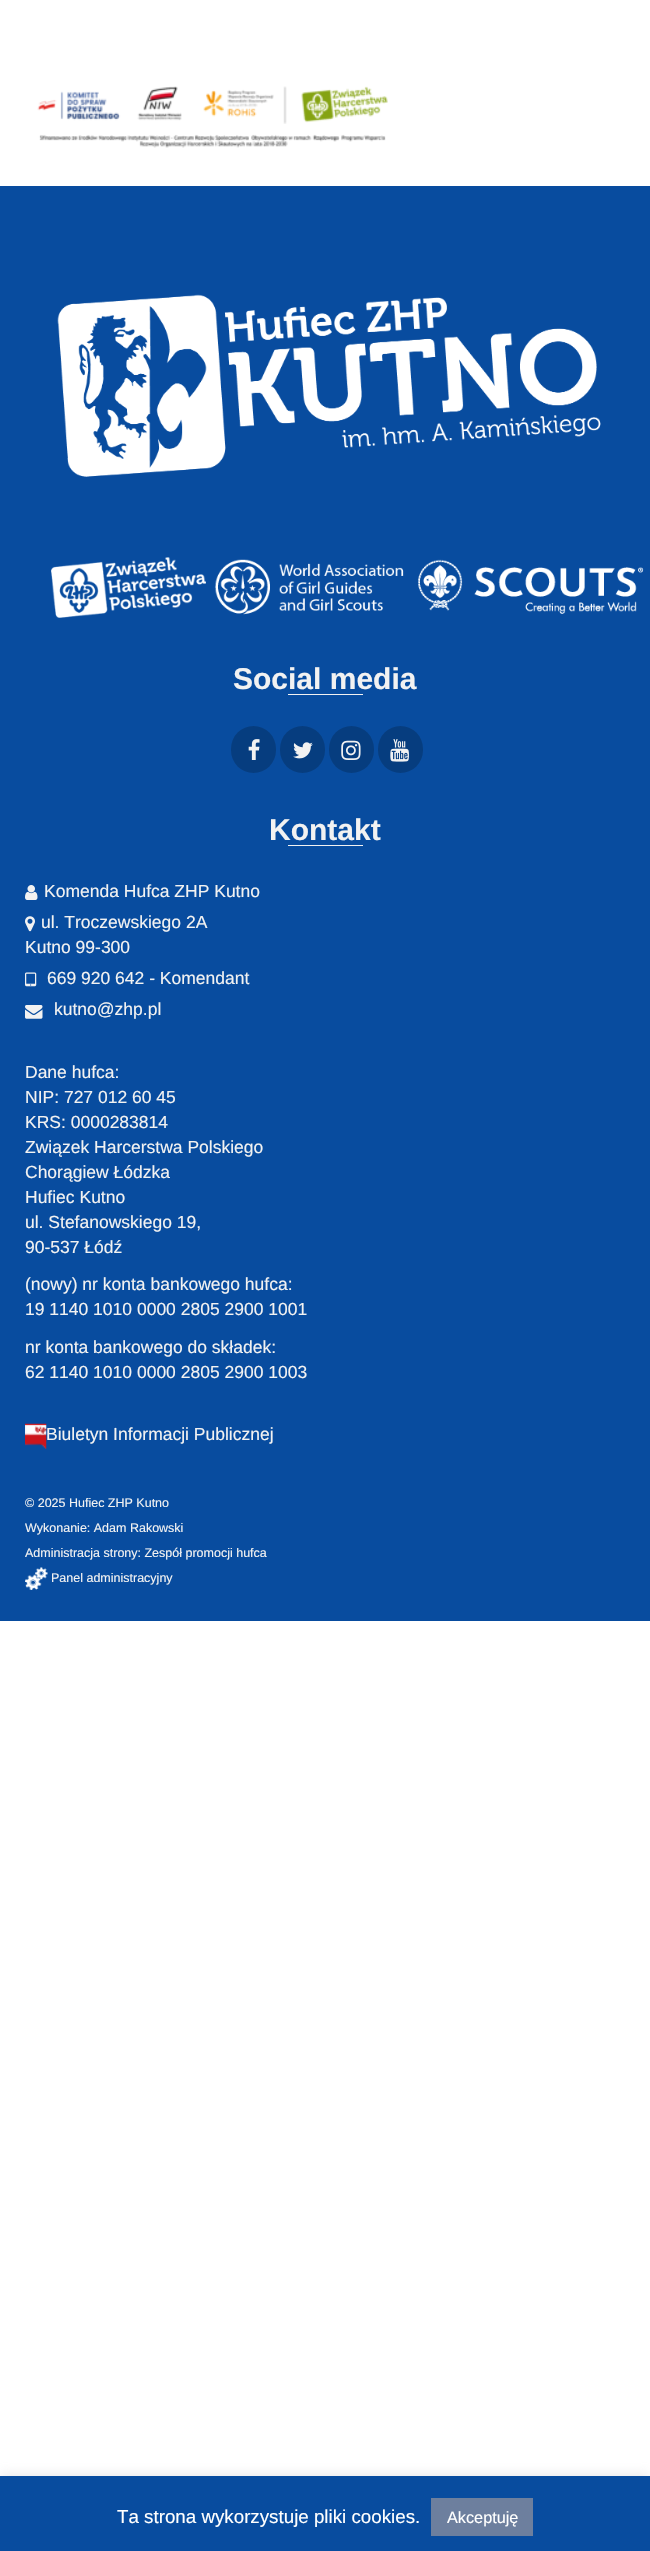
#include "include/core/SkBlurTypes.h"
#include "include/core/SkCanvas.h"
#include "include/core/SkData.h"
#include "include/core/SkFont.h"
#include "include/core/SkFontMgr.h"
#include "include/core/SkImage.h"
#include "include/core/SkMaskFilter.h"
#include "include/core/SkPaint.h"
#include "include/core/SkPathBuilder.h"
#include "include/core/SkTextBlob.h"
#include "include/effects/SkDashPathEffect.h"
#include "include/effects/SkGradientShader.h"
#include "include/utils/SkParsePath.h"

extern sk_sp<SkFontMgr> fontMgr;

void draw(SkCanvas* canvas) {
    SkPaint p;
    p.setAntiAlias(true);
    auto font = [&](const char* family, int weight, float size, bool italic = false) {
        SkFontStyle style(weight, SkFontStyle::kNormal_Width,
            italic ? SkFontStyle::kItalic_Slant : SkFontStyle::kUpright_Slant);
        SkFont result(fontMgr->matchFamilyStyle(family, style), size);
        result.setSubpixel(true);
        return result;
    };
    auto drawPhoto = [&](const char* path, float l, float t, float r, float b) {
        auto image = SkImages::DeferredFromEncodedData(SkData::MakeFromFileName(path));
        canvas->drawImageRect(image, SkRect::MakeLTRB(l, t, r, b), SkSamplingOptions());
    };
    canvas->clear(0xFFFFFFFF);
    drawPhoto("media/1.png", 37, 86, 388, 148);
    p.setColor(0xFF084C9F);
    canvas->drawRect(SkRect::MakeLTRB(0, 186, 650, 1621), p);
    drawPhoto("media/2.png", 57, 294, 601, 477);
    drawPhoto("media/3.png", 51, 557, 644, 618);
    auto font1 = font("Liberation Sans", 700, 30);
    p.setColor(0xFFF2F2F2);
    canvas->drawString("Social media", 233, 689, font1, p);
    canvas->drawRect(SkRect::MakeLTRB(288, 694, 363, 695), p);
    p.setColor(0xFF063D7F);
    canvas->drawRoundRect(SkRect::MakeLTRB(231, 726, 276, 773), 22.5f, 22.5f, p);
    drawPhoto("media/4.png", 248, 739, 260, 760);
    canvas->drawRoundRect(SkRect::MakeLTRB(280, 726, 325, 773), 22.5f, 22.5f, p);
    drawPhoto("media/5.png", 293, 742, 313, 759);
    canvas->drawRoundRect(SkRect::MakeLTRB(329, 726, 374, 773), 22.5f, 22.5f, p);
    drawPhoto("media/6.png", 341, 740, 361, 760);
    canvas->drawRoundRect(SkRect::MakeLTRB(378, 726, 423, 773), 22.5f, 22.5f, p);
    drawPhoto("media/7.png", 390, 739, 409, 762);
    p.setColor(0xFFF2F2F2);
    canvas->drawString("Kontakt", 269, 840, font1, p);
    canvas->drawRect(SkRect::MakeLTRB(288, 845, 363, 846), p);
    drawPhoto("media/8.png", 25, 885, 38, 900);
    auto font2 = font("Liberation Sans", 400, 17.5f);
    canvas->drawString("Komenda Hufca ZHP Kutno", 44, 897, font2, p);
    drawPhoto("media/9.png", 25, 916, 35, 932);
    canvas->drawString("ul. Troczewskiego 2A", 41, 928, font2, p);
    canvas->drawString("Kutno 99-300", 25, 953, font2, p);
    drawPhoto("media/10.png", 25, 972, 37, 987);
    canvas->drawString("669 920 642 - Komendant", 47, 984, font2, p);
    drawPhoto("media/11.png", 25, 1005, 43, 1019);
    {
        const struct { const char* s; float x, y; } items[] = {
            {"kutno@zhp.pl", 54, 1015},
            {"Dane hufca:", 25, 1078},
            {"NIP: 727 012 60 45", 25, 1103},
            {"KRS: 0000283814", 25, 1128},
            {"Związek Harcerstwa Polskiego", 25, 1153},
            {"Chorągiew Łódzka", 25, 1178},
            {"Hufiec Kutno", 25, 1203},
            {"ul. Stefanowskiego 19,", 25, 1228},
            {"90-537 Łódź", 25, 1253},
            {"(nowy) nr konta bankowego hufca:", 25, 1290},
            {"19 1140 1010 0000 2805 2900 1001", 25, 1315},
            {"nr konta bankowego do składek:", 25, 1353},
            {"62 1140 1010 0000 2805 2900 1003", 25, 1378},
        };
        for (auto [s, x, y] : items) {
            canvas->drawString(s, x, y, font2, p);
        }
    }
    drawPhoto("media/12.png", 25, 1423, 47, 1449);
    canvas->drawString("Biuletyn Informacji Publicznej", 46, 1440, font2, p);
    auto font3 = font("Liberation Sans", 400, 12.5f);
    {
        const struct { const char* s; float x, y; } items[] = {
            {"© 2025 Hufiec ZHP Kutno", 25, 1507},
            {"Wykonanie: Adam Rakowski", 25, 1532},
            {"Administracja strony: Zespół promocji hufca", 25, 1557},
        };
        for (auto [s, x, y] : items) {
            canvas->drawString(s, x, y, font3, p);
        }
    }
    drawPhoto("media/13.png", 25, 1567, 48, 1590);
    canvas->drawString("Panel administracyjny", 51, 1582, font3, p);
    p.setColor(0x4DACABAB);
    p.setMaskFilter(SkMaskFilter::MakeBlur(kNormal_SkBlurStyle, 6));
    canvas->drawRect(SkRect::MakeLTRB(0, 2475, 650, 2550), p);
    p.setMaskFilter(nullptr);
    p.setColor(0xFF084C9F);
    canvas->drawRect(SkRect::MakeLTRB(0, 2476, 650, 2551), p);
    auto font4 = font("Liberation Sans", 400, 18.75f);
    p.setColor(0xFFFFFFFF);
    canvas->drawString("Ta strona wykorzystuje pliki cookies.", 117, 2523, font4, p);
    p.setColor(0xFF6D7F9E);
    canvas->drawRect(SkRect::MakeLTRB(431, 2498, 533, 2536), p);
    auto font5 = font("Liberation Sans", 400, 16.25f);
    p.setColor(0xFFFFFFFF);
    canvas->drawString("Akceptuję", 447, 2523, font5, p);
}
